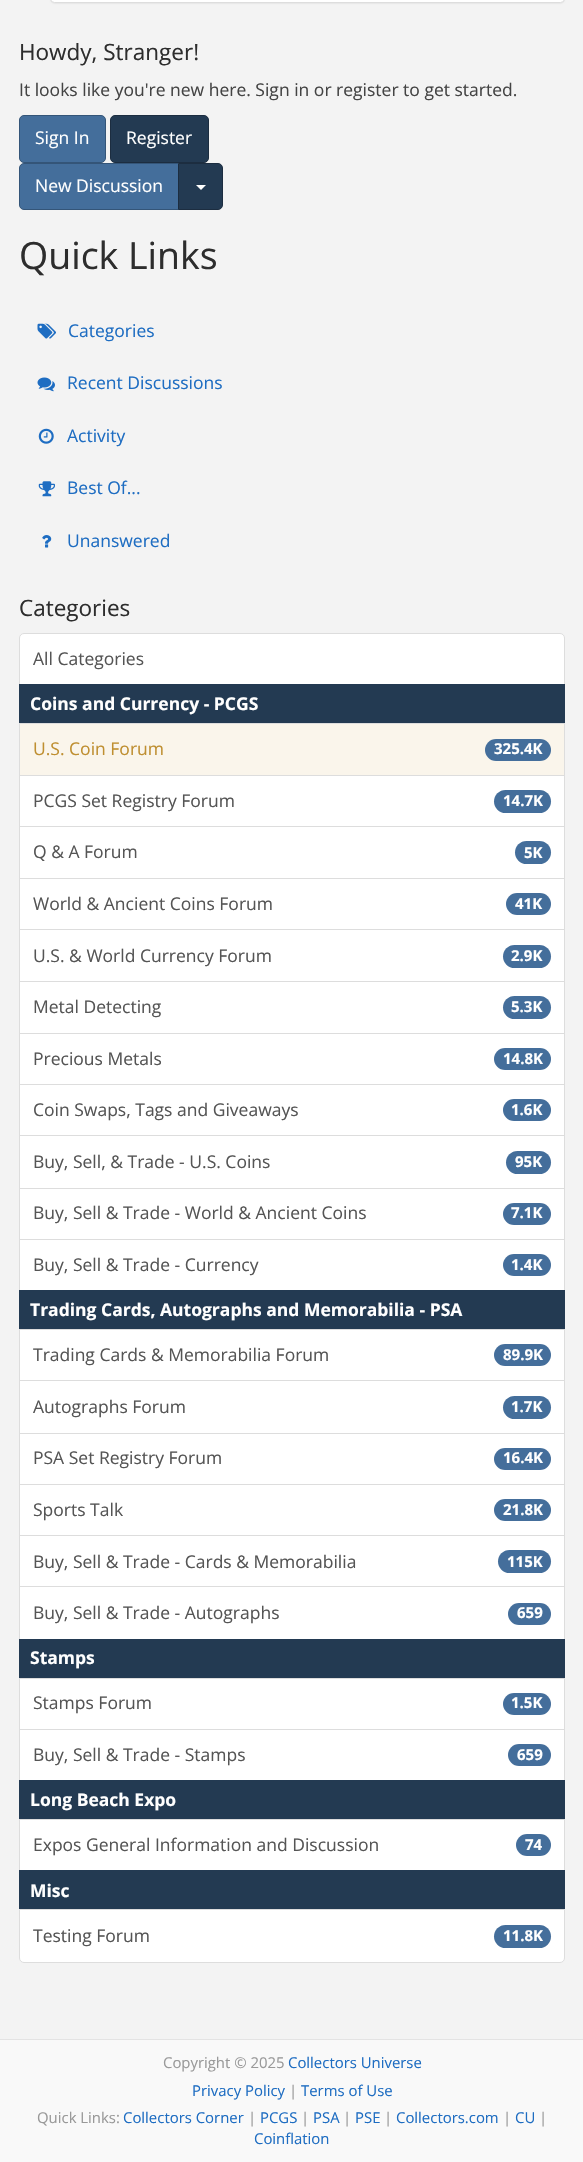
#include "include/core/SkBlurTypes.h"
#include "include/core/SkCanvas.h"
#include "include/core/SkData.h"
#include "include/core/SkFont.h"
#include "include/core/SkFontMgr.h"
#include "include/core/SkImage.h"
#include "include/core/SkMaskFilter.h"
#include "include/core/SkPaint.h"
#include "include/core/SkPathBuilder.h"
#include "include/core/SkTextBlob.h"
#include "include/effects/SkDashPathEffect.h"
#include "include/effects/SkGradientShader.h"
#include "include/utils/SkParsePath.h"

extern sk_sp<SkFontMgr> fontMgr;

void draw(SkCanvas* canvas) {
    SkPaint p;
    p.setAntiAlias(true);
    auto font = [&](const char* family, int weight, float size, bool italic = false) {
        SkFontStyle style(weight, SkFontStyle::kNormal_Width,
            italic ? SkFontStyle::kItalic_Slant : SkFontStyle::kUpright_Slant);
        SkFont result(fontMgr->matchFamilyStyle(family, style), size);
        result.setSubpixel(true);
        return result;
    };
    auto drawPhoto = [&](const char* path, float l, float t, float r, float b) {
        auto image = SkImages::DeferredFromEncodedData(SkData::MakeFromFileName(path));
        canvas->drawImageRect(image, SkRect::MakeLTRB(l, t, r, b), SkSamplingOptions());
    };
    canvas->clear(0xFFF3F3F3);
    p.setColor(0x0D000000);
    p.setMaskFilter(SkMaskFilter::MakeBlur(kNormal_SkBlurStyle, 0.5f));
    canvas->drawRoundRect(SkRect::MakeLTRB(50, -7, 565, 4), 5, 5, p);
    p.setMaskFilter(nullptr);
    p.setColor(0xFFFFFFFF);
    canvas->drawRoundRect(SkRect::MakeLTRB(50.5f, -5.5f, 564.5f, 2.5f), 4.5f, 4.5f, p);
    p.setStyle(SkPaint::kStroke_Style);
    p.setStrokeWidth(1);
    p.setColor(0xFFDDDDDD);
    canvas->drawRoundRect(SkRect::MakeLTRB(50.5f, -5.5f, 564.5f, 2.5f), 4.5f, 4.5f, p);
    auto font1 = font("Open Sans", 400, 22.5f);
    p.setStyle(SkPaint::kFill_Style);
    p.setColor(0xFF2D2D2D);
    canvas->drawString("Howdy, Stranger!", 19, 60, font1, p);
    auto font2 = font("Open Sans", 400, 17.5f);
    p.setColor(0xFF444444);
    canvas->drawString("It looks like you're new here. Sign in or register to get started.", 19, 96, font2, p);
    p.setColor(0xFF446E9B);
    canvas->drawRoundRect(SkRect::MakeLTRB(19.5f, 115.5f, 105.5f, 162.5f), 4.5f, 4.5f, p);
    p.setStyle(SkPaint::kStroke_Style);
    p.setColor(0xFF345578);
    canvas->drawRoundRect(SkRect::MakeLTRB(19.5f, 115.5f, 105.5f, 162.5f), 4.5f, 4.5f, p);
    p.setStyle(SkPaint::kFill_Style);
    p.setColor(0xFFFFFFFF);
    canvas->drawString("Sign In", 35, 144, font2, p);
    p.setColor(0xFF233A52);
    canvas->drawRoundRect(SkRect::MakeLTRB(110.5f, 115.5f, 208.5f, 162.5f), 4.5f, 4.5f, p);
    p.setStyle(SkPaint::kStroke_Style);
    p.setColor(0xFF1C2D40);
    canvas->drawRoundRect(SkRect::MakeLTRB(110.5f, 115.5f, 208.5f, 162.5f), 4.5f, 4.5f, p);
    p.setStyle(SkPaint::kFill_Style);
    p.setColor(0xFFFFFFFF);
    canvas->drawString("Register", 126, 144, font2, p);
    p.setColor(0xFF446E9B);
    canvas->drawPath(SkPathBuilder().moveTo(24, 163.5f).lineTo(178.5f, 163.5f).lineTo(178.5f, 209.5f).lineTo(24, 209.5f).cubicTo(21.5f, 209.5f, 19.5f, 207.5f, 19.5f, 205).lineTo(19.5f, 168).cubicTo(19.5f, 165.5f, 21.5f, 163.5f, 24, 163.5f).close().detach(), p);
    p.setStyle(SkPaint::kStroke_Style);
    p.setColor(0xFF345578);
    canvas->drawPath(SkPathBuilder().moveTo(24, 163.5f).lineTo(178.5f, 163.5f).lineTo(178.5f, 209.5f).lineTo(24, 209.5f).cubicTo(21.5f, 209.5f, 19.5f, 207.5f, 19.5f, 205).lineTo(19.5f, 168).cubicTo(19.5f, 165.5f, 21.5f, 163.5f, 24, 163.5f).close().detach(), p);
    p.setStyle(SkPaint::kFill_Style);
    p.setColor(0xFFFFFFFF);
    canvas->drawString("New Discussion", 35, 192, font2, p);
    p.setColor(0xFF233A52);
    canvas->drawPath(SkPathBuilder().moveTo(178.5f, 163.5f).lineTo(218, 163.5f).cubicTo(220.5f, 163.5f, 222.5f, 165.5f, 222.5f, 168).lineTo(222.5f, 205).cubicTo(222.5f, 207.5f, 220.5f, 209.5f, 218, 209.5f).lineTo(178.5f, 209.5f).close().detach(), p);
    p.setStyle(SkPaint::kStroke_Style);
    p.setColor(0xFF1C2D40);
    canvas->drawPath(SkPathBuilder().moveTo(178.5f, 163.5f).lineTo(218, 163.5f).cubicTo(220.5f, 163.5f, 222.5f, 165.5f, 222.5f, 168).lineTo(222.5f, 205).cubicTo(222.5f, 207.5f, 220.5f, 209.5f, 218, 209.5f).lineTo(178.5f, 209.5f).close().detach(), p);
    p.setStyle(SkPaint::kFill_Style);
    p.setColor(0xFFFFFFFF);
    canvas->drawPath(SkPathBuilder().moveTo(196, 185).lineTo(206, 185).lineTo(201, 190).close().detach(), p);
    auto font3 = font("Open Sans", 400, 37.5f);
    p.setColor(0xFF2D2D2D);
    canvas->drawString("Quick Links", 19, 269, font3, p);
    drawPhoto("media/1.png", 37, 323, 56, 339);
    p.setColor(0xFF1E6DC2);
    canvas->drawString("Categories", 68, 337, font2, p);
    drawPhoto("media/2.png", 37, 377, 55, 392);
    canvas->drawString("Recent Discussions", 67, 389, font2, p);
    drawPhoto("media/3.png", 38, 428, 54, 444);
    canvas->drawString("Activity", 67, 442, font2, p);
    drawPhoto("media/4.png", 38, 481, 55, 497);
    canvas->drawString("Best Of...", 67, 494, font2, p);
    drawPhoto("media/5.png", 42, 535, 52, 548);
    canvas->drawString("Unanswered", 67, 547, font2, p);
    p.setColor(0xFF2D2D2D);
    canvas->drawString("Categories", 19, 616, font1, p);
    p.setColor(0xFFFFFFFF);
    canvas->drawPath(SkPathBuilder().moveTo(24, 633.5f).lineTo(560, 633.5f).cubicTo(562.5f, 633.5f, 564.5f, 635.5f, 564.5f, 638).lineTo(564.5f, 684.5f).lineTo(19.5f, 684.5f).lineTo(19.5f, 638).cubicTo(19.5f, 635.5f, 21.5f, 633.5f, 24, 633.5f).close().detach(), p);
    p.setStyle(SkPaint::kStroke_Style);
    p.setColor(0xFFDDDDDD);
    canvas->drawPath(SkPathBuilder().moveTo(24, 633.5f).lineTo(560, 633.5f).cubicTo(562.5f, 633.5f, 564.5f, 635.5f, 564.5f, 638).lineTo(564.5f, 684.5f).lineTo(19.5f, 684.5f).lineTo(19.5f, 638).cubicTo(19.5f, 635.5f, 21.5f, 633.5f, 24, 633.5f).close().detach(), p);
    p.setStyle(SkPaint::kFill_Style);
    p.setColor(0xFF555555);
    canvas->drawString("All Categories", 33, 665, font2, p);
    p.setColor(0xFF233A52);
    canvas->drawRect(SkRect::MakeLTRB(19, 684, 565, 723), p);
    auto font4 = font("Open Sans", 700, 17.5f);
    p.setColor(0xFFFFFFFF);
    canvas->drawString("Coins and Currency - PCGS", 30, 710, font4, p);
    canvas->drawRect(SkRect::MakeLTRB(20, 776, 564, 826), p);
    p.setStyle(SkPaint::kStroke_Style);
    p.setColor(0xFFDDDDDD);
    canvas->drawRect(SkRect::MakeLTRB(19.5f, 775.5f, 564.5f, 827.5f), p);
    p.setStyle(SkPaint::kFill_Style);
    p.setColor(0xFFFAF5EB);
    canvas->drawRect(SkRect::MakeLTRB(19.5f, 723.5f, 564.5f, 775.5f), p);
    p.setStyle(SkPaint::kStroke_Style);
    p.setColor(0xFFDDDDDD);
    canvas->drawRect(SkRect::MakeLTRB(19.5f, 723.5f, 564.5f, 775.5f), p);
    p.setStyle(SkPaint::kFill_Style);
    p.setColor(0xFFBF8F31);
    canvas->drawString("U.S. Coin Forum", 33, 755, font2, p);
    p.setColor(0xFF446E9B);
    canvas->drawRoundRect(SkRect::MakeLTRB(485, 739, 551, 761), 11, 11, p);
    auto font5 = font("Open Sans", 700, 15);
    p.setColor(0xFFFFFFFF);
    canvas->drawString("325.4K", 494, 754, font5, p);
    p.setColor(0xFF555555);
    canvas->drawString("PCGS Set Registry Forum", 33, 807, font2, p);
    p.setColor(0xFF446E9B);
    canvas->drawRoundRect(SkRect::MakeLTRB(494, 790, 551, 813), 11.5f, 11.5f, p);
    p.setColor(0xFFFFFFFF);
    canvas->drawString("14.7K", 503, 806, font5, p);
    canvas->drawRect(SkRect::MakeLTRB(19.5f, 826.5f, 564.5f, 878.5f), p);
    p.setStyle(SkPaint::kStroke_Style);
    p.setColor(0xFFDDDDDD);
    canvas->drawRect(SkRect::MakeLTRB(19.5f, 826.5f, 564.5f, 878.5f), p);
    p.setStyle(SkPaint::kFill_Style);
    p.setColor(0xFF555555);
    canvas->drawString("Q & A Forum", 33, 858, font2, p);
    p.setColor(0xFF446E9B);
    canvas->drawRoundRect(SkRect::MakeLTRB(515, 841, 551, 864), 11.5f, 11.5f, p);
    p.setColor(0xFFFFFFFF);
    canvas->drawString("5K", 524, 858, font5, p);
    canvas->drawRect(SkRect::MakeLTRB(19.5f, 878.5f, 564.5f, 929.5f), p);
    p.setStyle(SkPaint::kStroke_Style);
    p.setColor(0xFFDDDDDD);
    canvas->drawRect(SkRect::MakeLTRB(19.5f, 878.5f, 564.5f, 929.5f), p);
    p.setStyle(SkPaint::kFill_Style);
    p.setColor(0xFF555555);
    canvas->drawString("World & Ancient Coins Forum", 33, 910, font2, p);
    p.setColor(0xFF446E9B);
    canvas->drawRoundRect(SkRect::MakeLTRB(506, 893, 551, 915), 11, 11, p);
    p.setColor(0xFFFFFFFF);
    canvas->drawString("41K", 515, 909, font5, p);
    canvas->drawRect(SkRect::MakeLTRB(20, 930, 564, 981), p);
    p.setStyle(SkPaint::kStroke_Style);
    p.setColor(0xFFDDDDDD);
    canvas->drawRect(SkRect::MakeLTRB(19.5f, 929.5f, 564.5f, 982.5f), p);
    p.setStyle(SkPaint::kFill_Style);
    p.setColor(0xFF555555);
    canvas->drawString("U.S. & World Currency Forum", 33, 962, font2, p);
    p.setColor(0xFF446E9B);
    canvas->drawRoundRect(SkRect::MakeLTRB(503, 945, 551, 968), 11.5f, 11.5f, p);
    p.setColor(0xFFFFFFFF);
    canvas->drawString("2.9K", 511, 961, font5, p);
    canvas->drawRect(SkRect::MakeLTRB(19.5f, 981.5f, 564.5f, 1033.5f), p);
    p.setStyle(SkPaint::kStroke_Style);
    p.setColor(0xFFDDDDDD);
    canvas->drawRect(SkRect::MakeLTRB(19.5f, 981.5f, 564.5f, 1033.5f), p);
    p.setStyle(SkPaint::kFill_Style);
    p.setColor(0xFF555555);
    canvas->drawString("Metal Detecting", 33, 1013, font2, p);
    p.setColor(0xFF446E9B);
    canvas->drawRoundRect(SkRect::MakeLTRB(503, 996, 551, 1019), 11.5f, 11.5f, p);
    p.setColor(0xFFFFFFFF);
    canvas->drawString("5.3K", 511, 1012, font5, p);
    canvas->drawRect(SkRect::MakeLTRB(19.5f, 1033.5f, 564.5f, 1084.5f), p);
    p.setStyle(SkPaint::kStroke_Style);
    p.setColor(0xFFDDDDDD);
    canvas->drawRect(SkRect::MakeLTRB(19.5f, 1033.5f, 564.5f, 1084.5f), p);
    p.setStyle(SkPaint::kFill_Style);
    p.setColor(0xFF555555);
    canvas->drawString("Precious Metals", 33, 1065, font2, p);
    p.setColor(0xFF446E9B);
    canvas->drawRoundRect(SkRect::MakeLTRB(494, 1048, 551, 1070), 11, 11, p);
    p.setColor(0xFFFFFFFF);
    canvas->drawString("14.8K", 503, 1064, font5, p);
    canvas->drawRect(SkRect::MakeLTRB(19.5f, 1084.5f, 564.5f, 1135.5f), p);
    p.setStyle(SkPaint::kStroke_Style);
    p.setColor(0xFFDDDDDD);
    canvas->drawRect(SkRect::MakeLTRB(19.5f, 1084.5f, 564.5f, 1135.5f), p);
    p.setStyle(SkPaint::kFill_Style);
    p.setColor(0xFF555555);
    canvas->drawString("Coin Swaps, Tags and Giveaways", 33, 1116, font2, p);
    p.setColor(0xFF446E9B);
    canvas->drawRoundRect(SkRect::MakeLTRB(503, 1099, 551, 1121), 11, 11, p);
    p.setColor(0xFFFFFFFF);
    canvas->drawString("1.6K", 511, 1115, font5, p);
    canvas->drawRect(SkRect::MakeLTRB(19.5f, 1135.5f, 564.5f, 1188.5f), p);
    p.setStyle(SkPaint::kStroke_Style);
    p.setColor(0xFFDDDDDD);
    canvas->drawRect(SkRect::MakeLTRB(19.5f, 1135.5f, 564.5f, 1188.5f), p);
    p.setStyle(SkPaint::kFill_Style);
    p.setColor(0xFF555555);
    canvas->drawString("Buy, Sell, & Trade - U.S. Coins", 33, 1168, font2, p);
    p.setColor(0xFF446E9B);
    canvas->drawRoundRect(SkRect::MakeLTRB(506, 1151, 551, 1174), 11.5f, 11.5f, p);
    p.setColor(0xFFFFFFFF);
    canvas->drawString("95K", 515, 1167, font5, p);
    canvas->drawRect(SkRect::MakeLTRB(19.5f, 1188.5f, 564.5f, 1239.5f), p);
    p.setStyle(SkPaint::kStroke_Style);
    p.setColor(0xFFDDDDDD);
    canvas->drawRect(SkRect::MakeLTRB(19.5f, 1188.5f, 564.5f, 1239.5f), p);
    p.setStyle(SkPaint::kFill_Style);
    p.setColor(0xFF555555);
    canvas->drawString("Buy, Sell & Trade - World & Ancient Coins", 33, 1219, font2, p);
    p.setColor(0xFF446E9B);
    canvas->drawRoundRect(SkRect::MakeLTRB(503, 1203, 551, 1225), 11, 11, p);
    p.setColor(0xFFFFFFFF);
    canvas->drawString("7.1K", 511, 1218, font5, p);
    canvas->drawRect(SkRect::MakeLTRB(19.5f, 1239.5f, 564.5f, 1290.5f), p);
    p.setStyle(SkPaint::kStroke_Style);
    p.setColor(0xFFDDDDDD);
    canvas->drawRect(SkRect::MakeLTRB(19.5f, 1239.5f, 564.5f, 1290.5f), p);
    p.setStyle(SkPaint::kFill_Style);
    p.setColor(0xFF555555);
    canvas->drawString("Buy, Sell & Trade - Currency", 33, 1271, font2, p);
    p.setColor(0xFF446E9B);
    canvas->drawRoundRect(SkRect::MakeLTRB(503, 1254, 551, 1276), 11, 11, p);
    p.setColor(0xFFFFFFFF);
    canvas->drawString("1.4K", 511, 1270, font5, p);
    p.setColor(0xFF233A52);
    canvas->drawRect(SkRect::MakeLTRB(19, 1290, 565, 1329), p);
    p.setColor(0xFFFFFFFF);
    canvas->drawString("Trading Cards, Autographs and Memorabilia - PSA", 30, 1316, font4, p);
    canvas->drawRect(SkRect::MakeLTRB(19.5f, 1329.5f, 564.5f, 1380.5f), p);
    p.setStyle(SkPaint::kStroke_Style);
    p.setColor(0xFFDDDDDD);
    canvas->drawRect(SkRect::MakeLTRB(19.5f, 1329.5f, 564.5f, 1380.5f), p);
    p.setStyle(SkPaint::kFill_Style);
    p.setColor(0xFF555555);
    canvas->drawString("Trading Cards & Memorabilia Forum", 33, 1361, font2, p);
    p.setColor(0xFF446E9B);
    canvas->drawRoundRect(SkRect::MakeLTRB(494, 1344, 551, 1366), 11, 11, p);
    p.setColor(0xFFFFFFFF);
    canvas->drawString("89.9K", 503, 1360, font5, p);
    canvas->drawRect(SkRect::MakeLTRB(19.5f, 1380.5f, 564.5f, 1433.5f), p);
    p.setStyle(SkPaint::kStroke_Style);
    p.setColor(0xFFDDDDDD);
    canvas->drawRect(SkRect::MakeLTRB(19.5f, 1380.5f, 564.5f, 1433.5f), p);
    p.setStyle(SkPaint::kFill_Style);
    p.setColor(0xFF555555);
    canvas->drawString("Autographs Forum", 33, 1413, font2, p);
    p.setColor(0xFF446E9B);
    canvas->drawRoundRect(SkRect::MakeLTRB(503, 1396, 551, 1419), 11.5f, 11.5f, p);
    p.setColor(0xFFFFFFFF);
    canvas->drawString("1.7K", 511, 1412, font5, p);
    canvas->drawRect(SkRect::MakeLTRB(19.5f, 1433.5f, 564.5f, 1484.5f), p);
    p.setStyle(SkPaint::kStroke_Style);
    p.setColor(0xFFDDDDDD);
    canvas->drawRect(SkRect::MakeLTRB(19.5f, 1433.5f, 564.5f, 1484.5f), p);
    p.setStyle(SkPaint::kFill_Style);
    p.setColor(0xFF555555);
    canvas->drawString("PSA Set Registry Forum", 33, 1464, font2, p);
    p.setColor(0xFF446E9B);
    canvas->drawRoundRect(SkRect::MakeLTRB(494, 1448, 551, 1470), 11, 11, p);
    p.setColor(0xFFFFFFFF);
    canvas->drawString("16.4K", 503, 1463, font5, p);
    canvas->drawRect(SkRect::MakeLTRB(19.5f, 1484.5f, 564.5f, 1535.5f), p);
    p.setStyle(SkPaint::kStroke_Style);
    p.setColor(0xFFDDDDDD);
    canvas->drawRect(SkRect::MakeLTRB(19.5f, 1484.5f, 564.5f, 1535.5f), p);
    p.setStyle(SkPaint::kFill_Style);
    p.setColor(0xFF555555);
    canvas->drawString("Sports Talk", 33, 1516, font2, p);
    p.setColor(0xFF446E9B);
    canvas->drawRoundRect(SkRect::MakeLTRB(494, 1499, 551, 1521), 11, 11, p);
    p.setColor(0xFFFFFFFF);
    canvas->drawString("21.8K", 503, 1515, font5, p);
    canvas->drawRect(SkRect::MakeLTRB(20, 1536, 564, 1586), p);
    p.setStyle(SkPaint::kStroke_Style);
    p.setColor(0xFFDDDDDD);
    canvas->drawRect(SkRect::MakeLTRB(19.5f, 1535.5f, 564.5f, 1587.5f), p);
    p.setStyle(SkPaint::kFill_Style);
    p.setColor(0xFF555555);
    canvas->drawString("Buy, Sell & Trade - Cards & Memorabilia", 33, 1568, font2, p);
    p.setColor(0xFF446E9B);
    canvas->drawRoundRect(SkRect::MakeLTRB(498, 1550, 551, 1573), 11.5f, 11.5f, p);
    p.setColor(0xFFFFFFFF);
    canvas->drawString("115K", 507, 1567, font5, p);
    canvas->drawRect(SkRect::MakeLTRB(19.5f, 1586.5f, 564.5f, 1639.5f), p);
    p.setStyle(SkPaint::kStroke_Style);
    p.setColor(0xFFDDDDDD);
    canvas->drawRect(SkRect::MakeLTRB(19.5f, 1586.5f, 564.5f, 1639.5f), p);
    p.setStyle(SkPaint::kFill_Style);
    p.setColor(0xFF555555);
    canvas->drawString("Buy, Sell & Trade - Autographs", 33, 1619, font2, p);
    p.setColor(0xFF446E9B);
    canvas->drawRoundRect(SkRect::MakeLTRB(508, 1603, 551, 1625), 11, 11, p);
    p.setColor(0xFFFFFFFF);
    canvas->drawString("659", 517, 1618, font5, p);
    p.setColor(0xFF233A52);
    canvas->drawRect(SkRect::MakeLTRB(19, 1639, 565, 1678), p);
    p.setColor(0xFFFFFFFF);
    canvas->drawString("Stamps", 30, 1664, font4, p);
    canvas->drawRect(SkRect::MakeLTRB(19.5f, 1678.5f, 564.5f, 1729.5f), p);
    p.setStyle(SkPaint::kStroke_Style);
    p.setColor(0xFFDDDDDD);
    canvas->drawRect(SkRect::MakeLTRB(19.5f, 1678.5f, 564.5f, 1729.5f), p);
    p.setStyle(SkPaint::kFill_Style);
    p.setColor(0xFF555555);
    canvas->drawString("Stamps Forum", 33, 1709, font2, p);
    p.setColor(0xFF446E9B);
    canvas->drawRoundRect(SkRect::MakeLTRB(503, 1693, 551, 1715), 11, 11, p);
    p.setColor(0xFFFFFFFF);
    canvas->drawString("1.5K", 511, 1708, font5, p);
    canvas->drawRect(SkRect::MakeLTRB(19.5f, 1729.5f, 564.5f, 1780.5f), p);
    p.setStyle(SkPaint::kStroke_Style);
    p.setColor(0xFFDDDDDD);
    canvas->drawRect(SkRect::MakeLTRB(19.5f, 1729.5f, 564.5f, 1780.5f), p);
    p.setStyle(SkPaint::kFill_Style);
    p.setColor(0xFF555555);
    canvas->drawString("Buy, Sell & Trade - Stamps", 33, 1761, font2, p);
    p.setColor(0xFF446E9B);
    canvas->drawRoundRect(SkRect::MakeLTRB(508, 1744, 551, 1766), 11, 11, p);
    p.setColor(0xFFFFFFFF);
    canvas->drawString("659", 517, 1760, font5, p);
    p.setColor(0xFF233A52);
    canvas->drawRect(SkRect::MakeLTRB(19, 1780, 565, 1819), p);
    p.setColor(0xFFFFFFFF);
    canvas->drawString("Long Beach Expo", 30, 1806, font4, p);
    canvas->drawRect(SkRect::MakeLTRB(19.5f, 1819.5f, 564.5f, 1870.5f), p);
    p.setStyle(SkPaint::kStroke_Style);
    p.setColor(0xFFDDDDDD);
    canvas->drawRect(SkRect::MakeLTRB(19.5f, 1819.5f, 564.5f, 1870.5f), p);
    p.setStyle(SkPaint::kFill_Style);
    p.setColor(0xFF555555);
    canvas->drawString("Expos General Information and Discussion", 33, 1851, font2, p);
    p.setColor(0xFF446E9B);
    canvas->drawRoundRect(SkRect::MakeLTRB(516, 1834, 551, 1856), 11, 11, p);
    p.setColor(0xFFFFFFFF);
    canvas->drawString("74", 525, 1850, font5, p);
    p.setColor(0xFF233A52);
    canvas->drawRect(SkRect::MakeLTRB(19, 1870, 565, 1909), p);
    p.setColor(0xFFFFFFFF);
    canvas->drawString("Misc", 30, 1897, font4, p);
    canvas->drawPath(SkPathBuilder().moveTo(19.5f, 1909.5f).lineTo(564.5f, 1909.5f).lineTo(564.5f, 1958).cubicTo(564.5f, 1960.5f, 562.5f, 1962.5f, 560, 1962.5f).lineTo(24, 1962.5f).cubicTo(21.5f, 1962.5f, 19.5f, 1960.5f, 19.5f, 1958).close().detach(), p);
    p.setStyle(SkPaint::kStroke_Style);
    p.setColor(0xFFDDDDDD);
    canvas->drawPath(SkPathBuilder().moveTo(19.5f, 1909.5f).lineTo(564.5f, 1909.5f).lineTo(564.5f, 1958).cubicTo(564.5f, 1960.5f, 562.5f, 1962.5f, 560, 1962.5f).lineTo(24, 1962.5f).cubicTo(21.5f, 1962.5f, 19.5f, 1960.5f, 19.5f, 1958).close().detach(), p);
    p.setStyle(SkPaint::kFill_Style);
    p.setColor(0xFF555555);
    canvas->drawString("Testing Forum", 33, 1942, font2, p);
    p.setColor(0xFF446E9B);
    canvas->drawRoundRect(SkRect::MakeLTRB(494, 1925, 551, 1948), 11.5f, 11.5f, p);
    p.setColor(0xFFFFFFFF);
    canvas->drawString("11.8K", 503, 1941, font5, p);
    p.setColor(0xFFF9F9F9);
    canvas->drawRect(SkRect::MakeLTRB(0, 2040, 583, 2162), p);
    p.setColor(0xFFE3E3E3);
    canvas->drawRect(SkRect::MakeLTRB(0, 2039, 583, 2040), p);
    auto font6 = font("Open Sans", 400, 14.9f);
    p.setColor(0xFF999999);
    canvas->drawString("Copyright © 2025", 163, 2068, font6, p);
    p.setColor(0xFF1E6DC2);
    canvas->drawString("Collectors Universe", 288, 2068, font6, p);
    canvas->drawString("Privacy Policy", 192, 2096, font6, p);
    p.setColor(0xFF999999);
    canvas->drawString("|", 289, 2096, font6, p);
    p.setColor(0xFF1E6DC2);
    canvas->drawString("Terms of Use", 301, 2096, font6, p);
    p.setColor(0xFF999999);
    canvas->drawString("Quick Links:", 37, 2123, font6, p);
    p.setColor(0xFF1E6DC2);
    canvas->drawString("Collectors Corner", 123, 2123, font6, p);
    p.setColor(0xFF999999);
    canvas->drawString("|", 248, 2123, font6, p);
    p.setColor(0xFF1E6DC2);
    canvas->drawString("PCGS", 260, 2123, font6, p);
    p.setColor(0xFF999999);
    canvas->drawString("|", 301, 2123, font6, p);
    p.setColor(0xFF1E6DC2);
    canvas->drawString("PSA", 313, 2123, font6, p);
    p.setColor(0xFF999999);
    canvas->drawString("|", 343, 2123, font6, p);
    p.setColor(0xFF1E6DC2);
    canvas->drawString("PSE", 355, 2123, font6, p);
    p.setColor(0xFF999999);
    canvas->drawString("|", 384, 2123, font6, p);
    p.setColor(0xFF1E6DC2);
    canvas->drawString("Collectors.com", 396, 2123, font6, p);
    p.setColor(0xFF999999);
    canvas->drawString("|", 503, 2123, font6, p);
    p.setColor(0xFF1E6DC2);
    canvas->drawString("CU", 515, 2123, font6, p);
    p.setColor(0xFF999999);
    canvas->drawString("|", 539, 2123, font6, p);
    p.setColor(0xFF1E6DC2);
    canvas->drawString("Coinflation", 254, 2144, font6, p);
}
